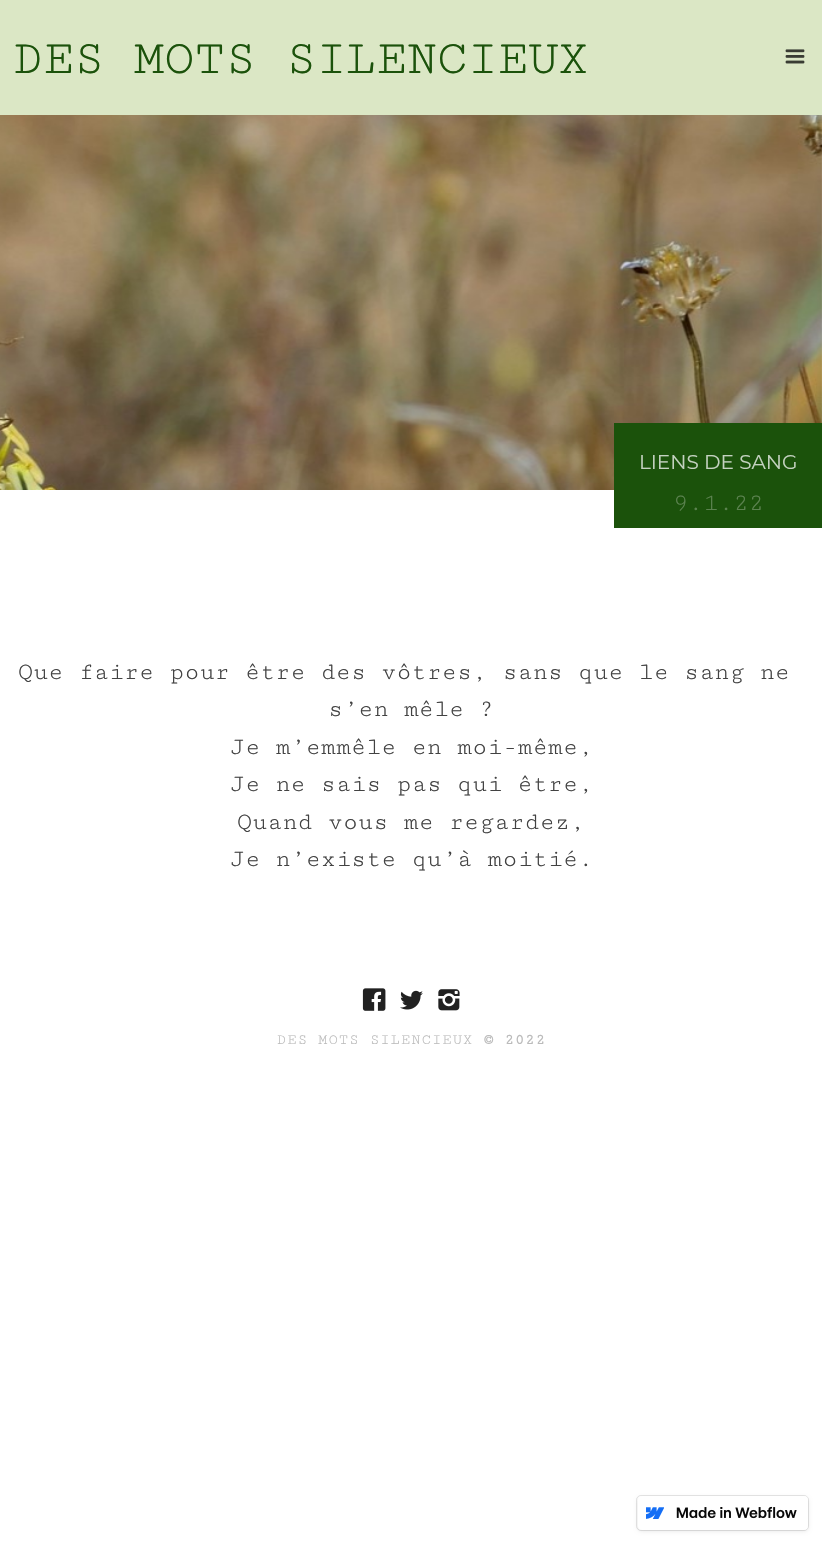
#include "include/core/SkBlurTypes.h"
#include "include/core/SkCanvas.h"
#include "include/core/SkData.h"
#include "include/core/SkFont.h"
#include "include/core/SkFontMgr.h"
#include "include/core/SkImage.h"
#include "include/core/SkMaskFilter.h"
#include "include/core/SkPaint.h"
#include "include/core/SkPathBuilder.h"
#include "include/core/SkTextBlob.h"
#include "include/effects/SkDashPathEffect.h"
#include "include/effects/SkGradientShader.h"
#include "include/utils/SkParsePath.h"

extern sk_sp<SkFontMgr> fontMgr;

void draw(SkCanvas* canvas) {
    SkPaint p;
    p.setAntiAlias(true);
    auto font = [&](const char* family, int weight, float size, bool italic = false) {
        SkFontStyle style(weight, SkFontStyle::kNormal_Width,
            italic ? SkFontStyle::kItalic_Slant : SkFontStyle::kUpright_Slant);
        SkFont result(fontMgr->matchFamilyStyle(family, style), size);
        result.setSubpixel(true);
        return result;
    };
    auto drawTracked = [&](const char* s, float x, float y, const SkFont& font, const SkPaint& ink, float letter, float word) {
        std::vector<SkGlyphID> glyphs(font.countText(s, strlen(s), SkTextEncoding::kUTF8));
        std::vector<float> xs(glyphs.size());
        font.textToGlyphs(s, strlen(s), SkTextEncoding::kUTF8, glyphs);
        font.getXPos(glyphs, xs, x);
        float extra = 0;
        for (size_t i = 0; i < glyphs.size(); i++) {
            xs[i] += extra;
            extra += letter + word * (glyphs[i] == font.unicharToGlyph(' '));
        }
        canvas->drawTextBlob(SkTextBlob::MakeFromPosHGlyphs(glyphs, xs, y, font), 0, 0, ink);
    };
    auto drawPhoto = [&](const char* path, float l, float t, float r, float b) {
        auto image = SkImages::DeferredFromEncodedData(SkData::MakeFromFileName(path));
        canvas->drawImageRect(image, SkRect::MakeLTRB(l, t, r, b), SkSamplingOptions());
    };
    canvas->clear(0xFFFFFFFF);
    p.setColor(0xFFDBE7C5);
    canvas->drawRect(SkRect::MakeLTRB(0, 0, 822, 115), p);
    auto font1 = font("Cutive Mono", 400, 50);
    p.setColor(0xFF1B520B);
    canvas->drawString("DES MOTS SILENCIEUX", 13, 73, font1, p);
    drawPhoto("media/1.png", 785, 49, 805, 64);
    drawPhoto("media/2.png", 0, 115, 822, 490);
    canvas->drawRect(SkRect::MakeLTRB(614, 423, 822, 528), p);
    auto font2 = font("Montserrat", 400, 20);
    p.setColor(0xFFC4D2C0);
    canvas->drawString("LIENS DE SANG", 639, 469, font2, p);
    auto font3 = font("Cutive Mono", 400, 25);
    p.setColor(0xFF5B824F);
    canvas->drawString("9.1.22", 673, 510, font3, p);
    p.setColor(0xFF424242);
    {
        const struct { const char* s; float x, y; } items[] = {
            {"Que faire pour être des vôtres, sans que le sang ne", 18, 679},
            {"s’en mêle ?", 328, 716},
            {"Je m’emmêle en moi-même,", 230, 754},
            {"Je ne sais pas qui être,", 230, 791},
            {"Quand vous me regardez,", 237, 829},
            {"Je n’existe qu’à moitié.", 230, 866},
        };
        for (auto [s, x, y] : items) {
            canvas->drawString(s, x, y, font3, p);
        }
    }
    drawPhoto("media/3.png", 362, 988, 386, 1011);
    drawPhoto("media/4.png", 400, 990, 423, 1010);
    drawPhoto("media/5.png", 438, 989, 460, 1011);
    auto font4 = font("Cutive Mono", 400, 15);
    p.setColor(0xFFBBBBBB);
    drawTracked("DES MOTS SILENCIEUX", 277, 1044, font4, p, 1.25f, 0);
    auto font5 = font("Cutive Mono", 700, 15);
    drawTracked("© 2022", 484, 1044, font5, p, 1.25f, 0);
    p.setColor(0x1A000000);
    p.setMaskFilter(SkMaskFilter::MakeBlur(kNormal_SkBlurStyle, 2));
    canvas->drawRoundRect(SkRect::MakeLTRB(638, 1498, 808, 1531), 4, 4, p);
    p.setMaskFilter(nullptr);
    p.setStyle(SkPaint::kStroke_Style);
    p.setStrokeWidth(1);
    canvas->drawRoundRect(SkRect::MakeLTRB(636.5f, 1495.5f, 808.5f, 1530.5f), 4.5f, 4.5f, p);
    p.setStyle(SkPaint::kFill_Style);
    p.setColor(0xFFFFFFFF);
    canvas->drawRoundRect(SkRect::MakeLTRB(638, 1496, 808, 1530), 4, 4, p);
    drawPhoto("media/6.png", 646, 1507, 664, 1519);
    drawPhoto("media/7.png", 676, 1506, 797, 1519);
}
